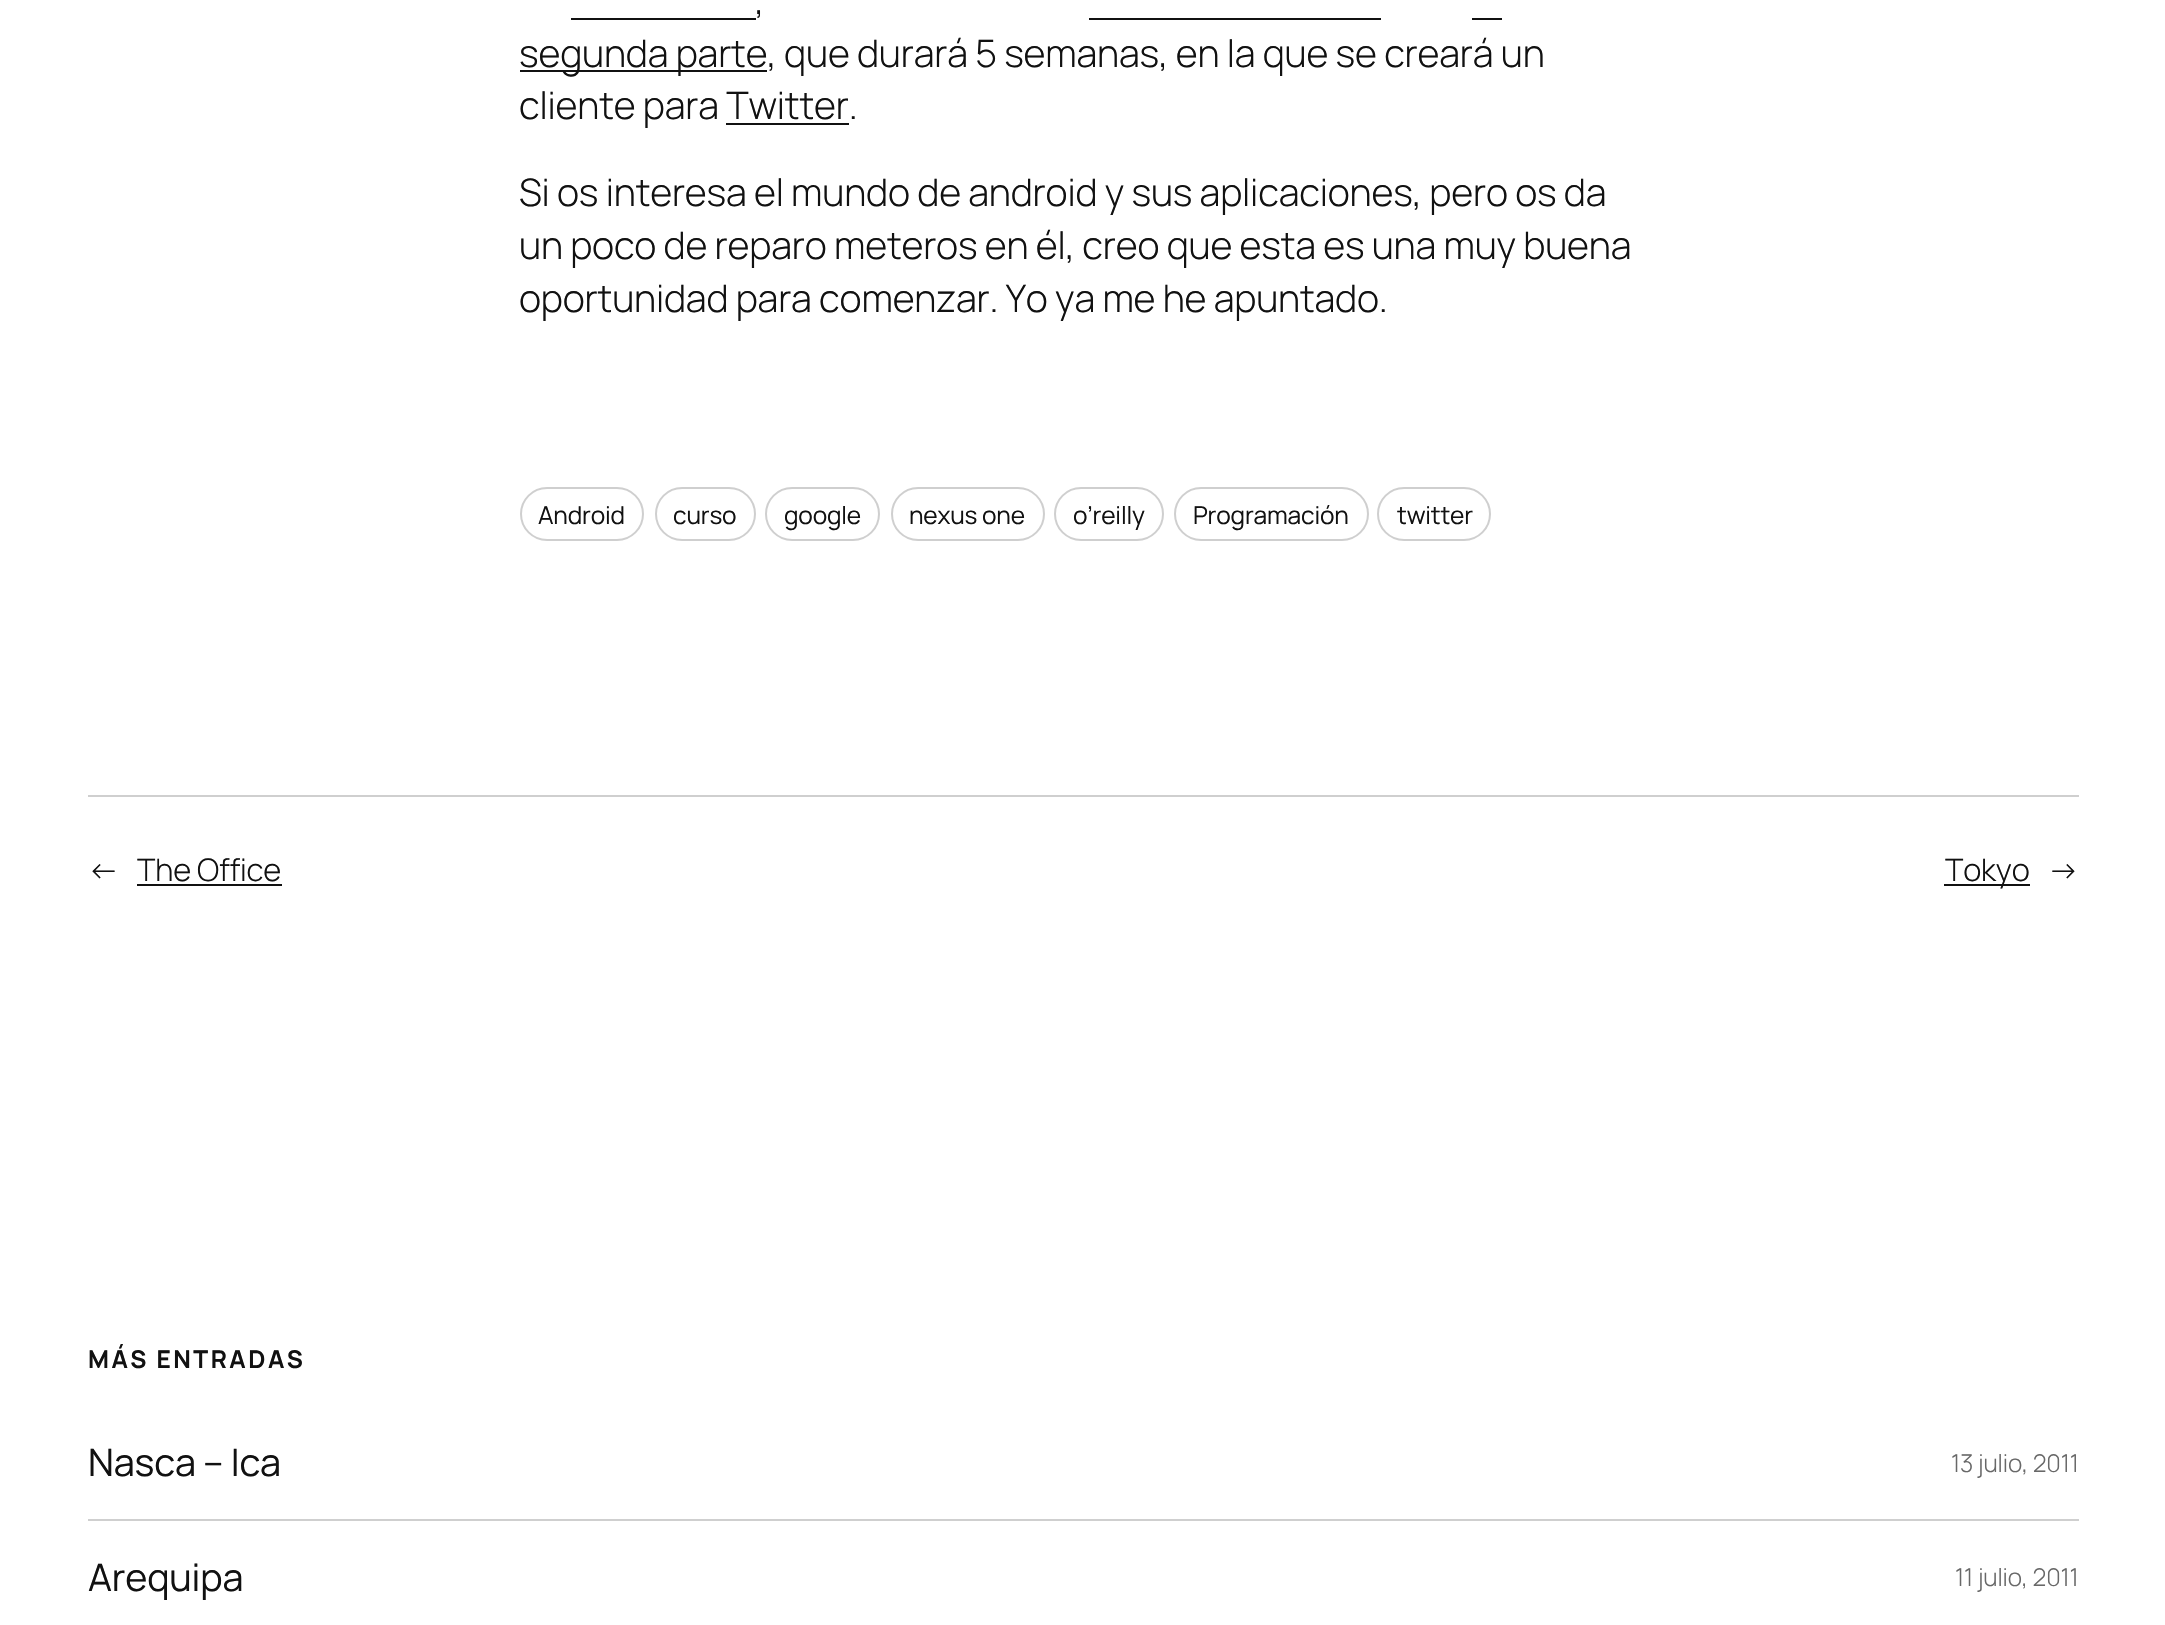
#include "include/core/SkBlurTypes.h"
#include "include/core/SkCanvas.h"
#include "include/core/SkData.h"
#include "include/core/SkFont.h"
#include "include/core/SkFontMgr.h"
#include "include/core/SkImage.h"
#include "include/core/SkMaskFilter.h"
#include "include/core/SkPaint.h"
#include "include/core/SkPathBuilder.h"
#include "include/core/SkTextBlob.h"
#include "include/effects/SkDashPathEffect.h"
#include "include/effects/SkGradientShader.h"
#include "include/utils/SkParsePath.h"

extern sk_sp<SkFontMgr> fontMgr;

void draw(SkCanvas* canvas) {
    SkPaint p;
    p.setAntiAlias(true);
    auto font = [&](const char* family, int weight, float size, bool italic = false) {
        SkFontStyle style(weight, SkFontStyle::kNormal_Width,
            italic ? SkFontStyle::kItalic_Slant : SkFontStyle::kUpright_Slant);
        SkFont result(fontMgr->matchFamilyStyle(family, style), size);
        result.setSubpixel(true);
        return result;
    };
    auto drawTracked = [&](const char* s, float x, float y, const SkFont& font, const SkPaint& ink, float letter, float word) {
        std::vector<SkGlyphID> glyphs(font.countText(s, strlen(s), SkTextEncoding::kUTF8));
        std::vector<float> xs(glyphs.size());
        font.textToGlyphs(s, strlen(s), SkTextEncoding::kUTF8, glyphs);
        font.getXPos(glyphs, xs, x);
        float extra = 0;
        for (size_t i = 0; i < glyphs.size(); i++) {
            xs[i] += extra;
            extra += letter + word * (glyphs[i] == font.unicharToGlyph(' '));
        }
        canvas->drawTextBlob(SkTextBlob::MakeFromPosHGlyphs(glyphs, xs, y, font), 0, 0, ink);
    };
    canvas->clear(0xFFFFFFFF);
    auto font1 = font("Manrope", 300, 37.8f);
    p.setColor(0xFF111111);
    drawTracked(",", 755, 14, font1, p, -0.18f, 0);
    {
        const struct { float l, t, r, b; SkColor color; } items[] = {
            {571, 18, 756, 20, 0xFF111111},
            {1089, 18, 1381, 20, 0xFF111111},
            {520, 70, 767, 72, 0xFF111111},
        };
        for (auto [l, t, r, b, color] : items) {
            p.setColor(color);
            canvas->drawRect(SkRect::MakeLTRB(l, t, r, b), p);
        }
    }
    drawTracked("segunda parte, que durará 5 semanas, en la que se creará un", 519, 67, font1, p, -0.18f, 0);
    canvas->drawRect(SkRect::MakeLTRB(1472, 18, 1502, 20), p);
    drawTracked("cliente para Twitter.", 519, 119, font1, p, -0.18f, 0);
    canvas->drawRect(SkRect::MakeLTRB(726, 123, 849, 125), p);
    {
        const struct { const char* s; float x, y; } items[] = {
            {"Si os interesa el mundo de android y sus aplicaciones, pero os da", 519, 206},
            {"un poco de reparo meteros en él, creo que esta es una muy buena", 519, 259},
            {"oportunidad para comenzar. Yo ya me he apuntado.", 519, 312},
        };
        for (auto [s, x, y] : items) {
            drawTracked(s, x, y, font1, p, -0.18f, 0);
        }
    }
    p.setStyle(SkPaint::kStroke_Style);
    p.setStrokeWidth(2);
    p.setColor(0xFFCFCFCF);
    canvas->drawRoundRect(SkRect::MakeLTRB(521, 488, 643, 540), 26, 26, p);
    auto font2 = font("Manrope", 400, 24.5f);
    p.setStyle(SkPaint::kFill_Style);
    p.setColor(0xFF111111);
    drawTracked("Android", 538, 524, font2, p, -0.18f, 0);
    p.setStyle(SkPaint::kStroke_Style);
    p.setColor(0xFFCFCFCF);
    canvas->drawRoundRect(SkRect::MakeLTRB(656, 488, 755, 540), 26, 26, p);
    p.setStyle(SkPaint::kFill_Style);
    p.setColor(0xFF111111);
    drawTracked("curso", 673, 524, font2, p, -0.18f, 0);
    p.setStyle(SkPaint::kStroke_Style);
    p.setColor(0xFFCFCFCF);
    canvas->drawRoundRect(SkRect::MakeLTRB(766, 488, 879, 540), 26, 26, p);
    p.setStyle(SkPaint::kFill_Style);
    p.setColor(0xFF111111);
    drawTracked("google", 784, 524, font2, p, -0.18f, 0);
    p.setStyle(SkPaint::kStroke_Style);
    p.setColor(0xFFCFCFCF);
    canvas->drawRoundRect(SkRect::MakeLTRB(892, 488, 1044, 540), 26, 26, p);
    p.setStyle(SkPaint::kFill_Style);
    p.setColor(0xFF111111);
    drawTracked("nexus one", 909, 524, font2, p, -0.18f, 0);
    p.setStyle(SkPaint::kStroke_Style);
    p.setColor(0xFFCFCFCF);
    canvas->drawRoundRect(SkRect::MakeLTRB(1055, 488, 1163, 540), 26, 26, p);
    p.setStyle(SkPaint::kFill_Style);
    p.setColor(0xFF111111);
    drawTracked("o’reilly", 1073, 524, font2, p, -0.18f, 0);
    p.setStyle(SkPaint::kStroke_Style);
    p.setColor(0xFFCFCFCF);
    canvas->drawRoundRect(SkRect::MakeLTRB(1175, 488, 1368, 540), 26, 26, p);
    p.setStyle(SkPaint::kFill_Style);
    p.setColor(0xFF111111);
    drawTracked("Programación", 1193, 524, font2, p, -0.18f, 0);
    p.setStyle(SkPaint::kStroke_Style);
    p.setColor(0xFFCFCFCF);
    canvas->drawRoundRect(SkRect::MakeLTRB(1378, 488, 1490, 540), 26, 26, p);
    p.setStyle(SkPaint::kFill_Style);
    p.setColor(0xFF111111);
    drawTracked("twitter", 1397, 524, font2, p, -0.18f, 0);
    p.setColor(0xFFCFCFCF);
    canvas->drawRect(SkRect::MakeLTRB(88, 795, 2079, 797), p);
    auto font3 = font("Manrope", 300, 31);
    p.setColor(0xFF111111);
    drawTracked("←", 88, 881, font3, p, -0.18f, 0);
    drawTracked("The Office", 137, 881, font3, p, -0.18f, 0);
    canvas->drawRect(SkRect::MakeLTRB(137, 884, 282, 886), p);
    canvas->drawRect(SkRect::MakeLTRB(1944, 884, 2030, 886), p);
    drawTracked("Tokyo", 1945, 881, font3, p, -0.18f, 0);
    drawTracked("→", 2048, 881, font3, p, -0.18f, 0);
    auto font4 = font("Manrope", 700, 24.5f);
    drawTracked("MÁS ENTRADAS", 88, 1368, font4, p, 2.5f, 0);
    p.setColor(0xFFCFCFCF);
    canvas->drawRect(SkRect::MakeLTRB(88, 1519, 2079, 1521), p);
    auto font5 = font("Manrope", 400, 37.8f);
    p.setColor(0xFF111111);
    drawTracked("Nasca – Ica", 88, 1476, font5, p, -0.18f, 0);
    auto font6 = font("Manrope", 300, 24.5f);
    p.setColor(0xFF686868);
    drawTracked("13 julio, 2011", 1951, 1472, font6, p, -0.18f, 0);
    p.setColor(0xFF111111);
    drawTracked("Arequipa", 88, 1591, font5, p, -0.18f, 0);
    p.setColor(0xFF686868);
    drawTracked("11 julio, 2011", 1955, 1586, font6, p, -0.18f, 0);
}
